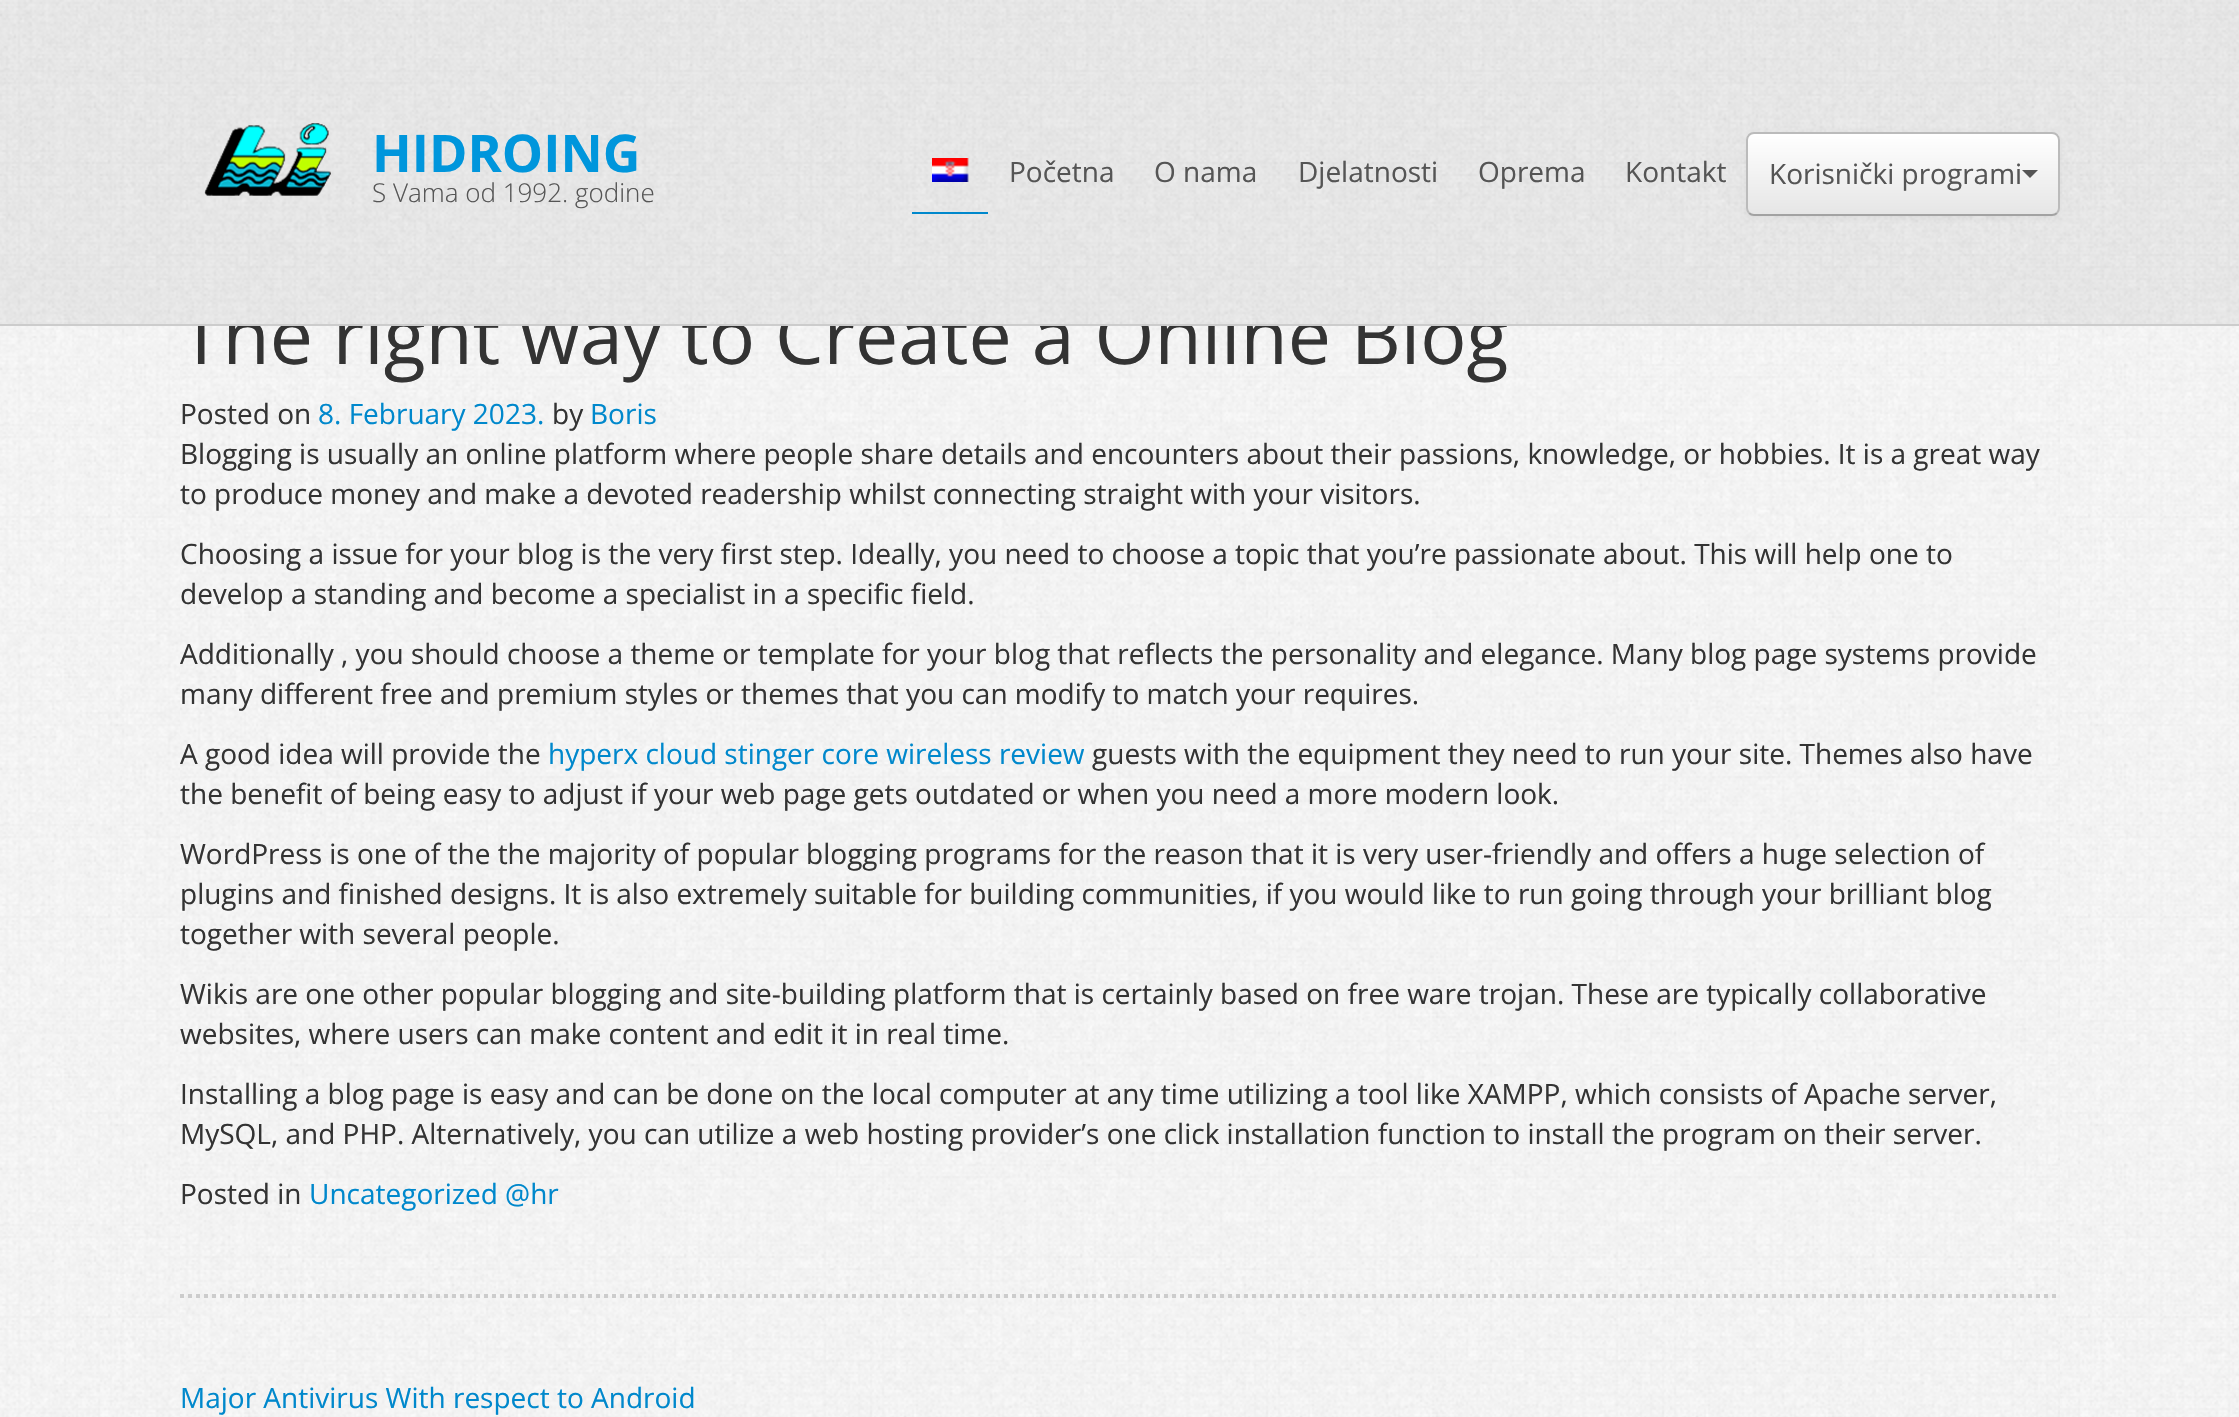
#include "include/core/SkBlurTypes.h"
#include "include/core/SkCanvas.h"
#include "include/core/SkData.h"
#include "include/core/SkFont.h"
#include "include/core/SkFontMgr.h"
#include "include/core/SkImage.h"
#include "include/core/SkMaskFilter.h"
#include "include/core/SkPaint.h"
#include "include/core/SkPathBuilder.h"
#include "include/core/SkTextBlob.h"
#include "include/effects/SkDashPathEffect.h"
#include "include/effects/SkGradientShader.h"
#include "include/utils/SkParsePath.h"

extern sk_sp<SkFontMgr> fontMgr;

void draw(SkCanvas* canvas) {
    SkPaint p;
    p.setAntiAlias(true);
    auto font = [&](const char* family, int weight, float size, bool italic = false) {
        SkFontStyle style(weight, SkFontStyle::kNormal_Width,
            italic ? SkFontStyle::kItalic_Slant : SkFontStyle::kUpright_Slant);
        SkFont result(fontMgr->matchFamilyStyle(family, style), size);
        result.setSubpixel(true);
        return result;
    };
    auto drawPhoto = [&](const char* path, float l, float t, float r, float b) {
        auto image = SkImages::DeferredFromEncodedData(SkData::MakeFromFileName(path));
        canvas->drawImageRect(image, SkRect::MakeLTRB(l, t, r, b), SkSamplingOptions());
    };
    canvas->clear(0xFFFFFFFF);
    drawPhoto("media/1.png", 0, 326, 2239, 1417);
    drawPhoto("media/5.png", 180, 326, 2060, 1417);
    auto font1 = font("Open Sans", 400, 77);
    p.setColor(0xFF333333);
    canvas->drawString("The right way to Create a Online Blog", 180, 364, font1, p);
    drawPhoto("media/2.png", 0, 0, 2239, 324);
    p.setColor(0xFFCCCCCC);
    canvas->drawRect(SkRect::MakeLTRB(0, 324, 2239, 326), p);
    drawPhoto("media/3.png", 204, 123, 331, 196);
    auto font2 = font("Open Sans", 700, 52);
    p.setColor(0xFF0096DC);
    canvas->drawString("HIDROING", 372, 172, font2, p);
    auto font3 = font("Open Sans", 300, 26);
    p.setColor(0xFF555555);
    canvas->drawString("S Vama od 1992. godine", 372, 202, font3, p);
    p.setColor(0xFF0088CC);
    canvas->drawRect(SkRect::MakeLTRB(912, 212, 988, 214), p);
    drawPhoto("media/4.png", 932, 158, 969, 182);
    auto font4 = font("Open Sans", 400, 28);
    p.setColor(0xFF555555);
    {
        const struct { const char* s; float x, y; } items[] = {
            {"Početna", 1009, 182},
            {"O nama", 1154, 182},
            {"Djelatnosti", 1298, 182},
            {"Oprema", 1478, 182},
            {"Kontakt", 1625, 182},
        };
        for (auto [s, x, y] : items) {
            canvas->drawString(s, x, y, font4, p);
        }
    }
    p.setColor(0x0D000000);
    p.setMaskFilter(SkMaskFilter::MakeBlur(kNormal_SkBlurStyle, 2));
    canvas->drawRoundRect(SkRect::MakeLTRB(1746, 134, 2060, 218), 8, 8, p);
    p.setMaskFilter(nullptr);
    canvas->save();
    canvas->clipPath(SkPathBuilder().moveTo(1754, 132).lineTo(2052, 132).cubicTo(2056.5f, 132, 2060, 135.5f, 2060, 140).lineTo(2060, 208).cubicTo(2060, 212.5f, 2056.5f, 216, 2052, 216).lineTo(1754, 216).cubicTo(1749.5f, 216, 1746, 212.5f, 1746, 208).lineTo(1746, 140).cubicTo(1746, 135.5f, 1749.5f, 132, 1754, 132).close().detach(), true);
    {
        const SkColor colors[] = {0xFFFFFFFF, 0xFFE6E6E6};
        const float stops[] = {0, 1};
        const SkPoint ends[] = {{1903, 134}, {1903, 214}};
        p.setShader(SkGradientShader::MakeLinear(ends, colors, stops, 2, SkTileMode::kClamp));
        p.setAlpha(255);
    }
    canvas->drawRect(SkRect::MakeLTRB(1746, 134, 2060, 214), p);
    canvas->restore();
    p.setStyle(SkPaint::kStroke_Style);
    p.setStrokeWidth(2);
    p.setShader(nullptr);
    p.setColor(0xFFA2A2A2);
    canvas->drawPath(SkPathBuilder().moveTo(2057, 213).cubicTo(2055.5f, 214.5f, 2054, 215, 2052, 215).lineTo(1754, 215).cubicTo(1752, 215, 1750.5f, 214.5f, 1749, 213).detach(), p);
    p.setColor(0xFFBBBBBB);
    canvas->drawPath(SkPathBuilder().moveTo(1749, 213).cubicTo(1747.5f, 211.5f, 1747, 210, 1747, 208).lineTo(1747, 140).cubicTo(1747, 138, 1747.5f, 136.5f, 1749, 135).cubicTo(1750.5f, 133.5f, 1752, 133, 1754, 133).lineTo(2052, 133).cubicTo(2054, 133, 2055.5f, 133.5f, 2057, 135).cubicTo(2058.5f, 136.5f, 2059, 138, 2059, 140).lineTo(2059, 208).cubicTo(2059, 210, 2058.5f, 211.5f, 2057, 213).detach(), p);
    p.setStyle(SkPaint::kFill_Style);
    p.setColor(0xFF555555);
    canvas->drawString("Korisnički programi", 1769, 184, font4, p);
    canvas->drawPath(SkPathBuilder().moveTo(2022, 170).lineTo(2038, 170).lineTo(2030, 178).close().detach(), p);
    p.setStyle(SkPaint::kStroke_Style);
    p.setStrokeWidth(4);
    p.setColor(0xFFCCCCCC);
    p.setPathEffect(SkDashPathEffect::Make({{4, 4}}, 0));
    canvas->drawPath(SkPathBuilder().moveTo(180, 1296).lineTo(2060, 1296).detach(), p);
    p.setPathEffect(nullptr);
    p.setStyle(SkPaint::kFill_Style);
    p.setColor(0xFF333333);
    canvas->drawString("Posted on", 180, 424, font4, p);
    p.setColor(0xFF0088CC);
    canvas->drawString("8. February 2023.", 318, 424, font4, p);
    p.setColor(0xFF333333);
    canvas->drawString("by", 552, 424, font4, p);
    p.setColor(0xFF0088CC);
    canvas->drawString("Boris", 590, 424, font4, p);
    p.setColor(0xFF333333);
    {
        const struct { const char* s; float x, y; } items[] = {
            {"Blogging is usually an online platform where people share details and encounters about their passions, knowledge, or hobbies. It is a great way", 180, 464},
            {"to produce money and make a devoted readership whilst connecting straight with your visitors.", 180, 504},
            {"Choosing a issue for your blog is the very first step. Ideally, you need to choose a topic that you’re passionate about. This will help one to", 180, 564},
            {"develop a standing and become a specialist in a specific field.", 180, 604},
            {"Additionally , you should choose a theme or template for your blog that reflects the personality and elegance. Many blog page systems provide", 180, 664},
            {"many different free and premium styles or themes that you can modify to match your requires.", 180, 704},
            {"A good idea will provide the", 180, 764},
        };
        for (auto [s, x, y] : items) {
            canvas->drawString(s, x, y, font4, p);
        }
    }
    p.setColor(0xFF0088CC);
    canvas->drawString("hyperx cloud stinger core wireless review", 548, 764, font4, p);
    p.setColor(0xFF333333);
    {
        const struct { const char* s; float x, y; } items[] = {
            {"guests with the equipment they need to run your site. Themes also have", 1092, 764},
            {"the benefit of being easy to adjust if your web page gets outdated or when you need a more modern look.", 180, 804},
            {"WordPress is one of the the majority of popular blogging programs for the reason that it is very user-friendly and offers a huge selection of", 180, 864},
            {"plugins and finished designs. It is also extremely suitable for building communities, if you would like to run going through your brilliant blog", 180, 904},
            {"together with several people.", 180, 944},
            {"Wikis are one other popular blogging and site-building platform that is certainly based on free ware trojan. These are typically collaborative", 180, 1004},
            {"websites, where users can make content and edit it in real time.", 180, 1044},
            {"Installing a blog page is easy and can be done on the local computer at any time utilizing a tool like XAMPP, which consists of Apache server,", 180, 1104},
            {"MySQL, and PHP. Alternatively, you can utilize a web hosting provider’s one click installation function to install the program on their server.", 180, 1144},
            {"Posted in", 180, 1204},
        };
        for (auto [s, x, y] : items) {
            canvas->drawString(s, x, y, font4, p);
        }
    }
    p.setColor(0xFF0088CC);
    canvas->drawString("Uncategorized @hr", 309, 1204, font4, p);
    canvas->drawString("Major Antivirus With respect to Android", 180, 1408, font4, p);
}
